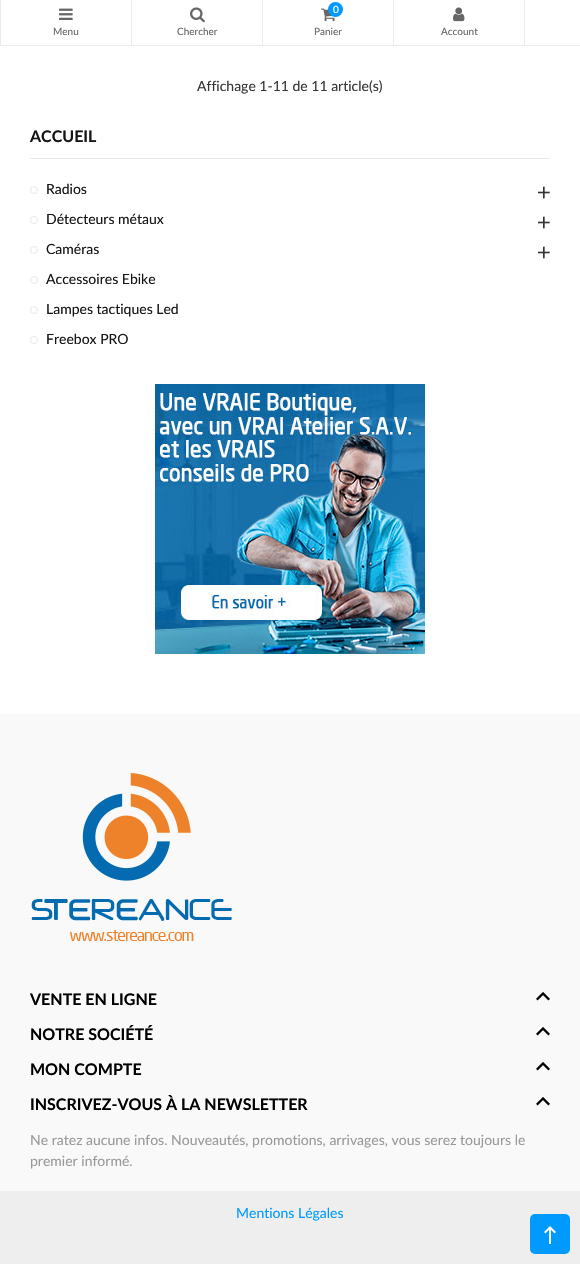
#include "include/core/SkBlurTypes.h"
#include "include/core/SkCanvas.h"
#include "include/core/SkData.h"
#include "include/core/SkFont.h"
#include "include/core/SkFontMgr.h"
#include "include/core/SkImage.h"
#include "include/core/SkMaskFilter.h"
#include "include/core/SkPaint.h"
#include "include/core/SkPathBuilder.h"
#include "include/core/SkTextBlob.h"
#include "include/effects/SkDashPathEffect.h"
#include "include/effects/SkGradientShader.h"
#include "include/utils/SkParsePath.h"

extern sk_sp<SkFontMgr> fontMgr;

void draw(SkCanvas* canvas) {
    SkPaint p;
    p.setAntiAlias(true);
    auto font = [&](const char* family, int weight, float size, bool italic = false) {
        SkFontStyle style(weight, SkFontStyle::kNormal_Width,
            italic ? SkFontStyle::kItalic_Slant : SkFontStyle::kUpright_Slant);
        SkFont result(fontMgr->matchFamilyStyle(family, style), size);
        result.setSubpixel(true);
        return result;
    };
    auto drawPhoto = [&](const char* path, float l, float t, float r, float b) {
        auto image = SkImages::DeferredFromEncodedData(SkData::MakeFromFileName(path));
        canvas->drawImageRect(image, SkRect::MakeLTRB(l, t, r, b), SkSamplingOptions());
    };
    canvas->clear(0xFFFFFFFF);
    {
        const struct { float l, t, r, b; SkColor color; } items[] = {
            {0, 45, 580, 46, 0xFFEBEBEB},
            {131, 0, 132, 45, 0xFFEBEBEB},
            {0, 0, 1, 45, 0xFFEBEBEB},
        };
        for (auto [l, t, r, b, color] : items) {
            p.setColor(color);
            canvas->drawRect(SkRect::MakeLTRB(l, t, r, b), p);
        }
    }
    drawPhoto("media/1.png", 59, 8, 73, 20);
    auto font1 = font("Lato", 400, 10);
    p.setColor(0xFF666666);
    canvas->drawString("Menu", 53, 35, font1, p);
    p.setColor(0xFFEBEBEB);
    canvas->drawRect(SkRect::MakeLTRB(262, 0, 263, 45), p);
    drawPhoto("media/2.png", 190, 7, 205, 23);
    p.setColor(0xFF666666);
    canvas->drawString("Chercher", 177, 35, font1, p);
    p.setColor(0xFFEBEBEB);
    canvas->drawRect(SkRect::MakeLTRB(393, 0, 394, 45), p);
    drawPhoto("media/3.png", 321, 8, 335, 22);
    p.setColor(0xFF009AFF);
    canvas->drawCircle(335.5f, 9.5f, 7.5f, p);
    p.setColor(0xFFFFFFFF);
    canvas->drawString("0", 333, 13, font1, p);
    p.setColor(0xFF666666);
    canvas->drawString("Panier", 314, 35, font1, p);
    p.setColor(0xFFEBEBEB);
    canvas->drawRect(SkRect::MakeLTRB(524, 0, 525, 45), p);
    drawPhoto("media/4.png", 453, 7, 465, 22);
    p.setColor(0xFF666666);
    canvas->drawString("Account", 441, 35, font1, p);
    auto font2 = font("Lato", 400, 14);
    p.setColor(0xFF353535);
    canvas->drawString("Affichage 1-11 de 11 article(s)", 197, 91, font2, p);
    p.setColor(0xFFE9E7E7);
    canvas->drawRect(SkRect::MakeLTRB(30, 158, 550, 159), p);
    auto font3 = font("Lato", 700, 16);
    p.setColor(0xFF141414);
    canvas->drawString("ACCUEIL", 30, 142, font3, p);
    p.setStyle(SkPaint::kStroke_Style);
    p.setStrokeWidth(1);
    p.setColor(0xFFE9E7E7);
    canvas->drawCircle(34, 190, 3.5f, p);
    p.setStyle(SkPaint::kFill_Style);
    p.setColor(0xFF141414);
    canvas->drawString("Radios", 46, 194, font2, p);
    drawPhoto("media/5.png", 538, 186, 550, 199);
    p.setStyle(SkPaint::kStroke_Style);
    p.setColor(0xFFE9E7E7);
    canvas->drawCircle(34, 220, 3.5f, p);
    p.setStyle(SkPaint::kFill_Style);
    p.setColor(0xFF141414);
    canvas->drawString("Détecteurs métaux", 46, 224, font2, p);
    drawPhoto("media/5.png", 538, 216, 550, 229);
    p.setStyle(SkPaint::kStroke_Style);
    p.setColor(0xFFE9E7E7);
    canvas->drawCircle(34, 250, 3.5f, p);
    p.setStyle(SkPaint::kFill_Style);
    p.setColor(0xFF141414);
    canvas->drawString("Caméras", 46, 254, font2, p);
    drawPhoto("media/5.png", 538, 246, 550, 259);
    p.setStyle(SkPaint::kStroke_Style);
    p.setColor(0xFFE9E7E7);
    canvas->drawCircle(34, 280, 3.5f, p);
    p.setStyle(SkPaint::kFill_Style);
    p.setColor(0xFF141414);
    canvas->drawString("Accessoires Ebike", 46, 284, font2, p);
    p.setStyle(SkPaint::kStroke_Style);
    p.setColor(0xFFE9E7E7);
    canvas->drawCircle(34, 310, 3.5f, p);
    p.setStyle(SkPaint::kFill_Style);
    p.setColor(0xFF141414);
    canvas->drawString("Lampes tactiques Led", 46, 314, font2, p);
    p.setStyle(SkPaint::kStroke_Style);
    p.setColor(0xFFE9E7E7);
    canvas->drawCircle(34, 340, 3.5f, p);
    p.setStyle(SkPaint::kFill_Style);
    p.setColor(0xFF141414);
    canvas->drawString("Freebox PRO", 46, 344, font2, p);
    drawPhoto("media/6.png", 155, 384, 425, 654);
    p.setColor(0xFFF9F9F9);
    canvas->drawRect(SkRect::MakeLTRB(0, 714, 580, 1191), p);
    drawPhoto("media/7.png", 31, 773, 232, 941);
    p.setColor(0xFF000000);
    canvas->drawString("VENTE EN LIGNE", 30, 1005, font3, p);
    drawPhoto("media/8.png", 536, 992, 550, 1001);
    canvas->drawString("NOTRE SOCIÉTÉ", 30, 1040, font3, p);
    drawPhoto("media/8.png", 536, 1027, 550, 1036);
    canvas->drawString("MON COMPTE", 30, 1075, font3, p);
    drawPhoto("media/8.png", 536, 1062, 550, 1071);
    canvas->drawString("INSCRIVEZ-VOUS À LA NEWSLETTER", 30, 1110, font3, p);
    drawPhoto("media/8.png", 536, 1097, 550, 1106);
    p.setColor(0xFF999999);
    canvas->drawString("Ne ratez aucune infos. Nouveautés, promotions, arrivages, vous serez toujours le", 30, 1145, font2, p);
    canvas->drawString("premier informé.", 30, 1166, font2, p);
    p.setColor(0xFFEEEEEE);
    canvas->drawRect(SkRect::MakeLTRB(0, 1191, 580, 1264), p);
    p.setColor(0xFF009AFF);
    canvas->drawString("Mentions Légales", 236, 1218, font2, p);
    canvas->drawRoundRect(SkRect::MakeLTRB(530, 1214, 570, 1254), 5, 5, p);
    drawPhoto("media/9.png", 544, 1226, 556, 1244);
}
